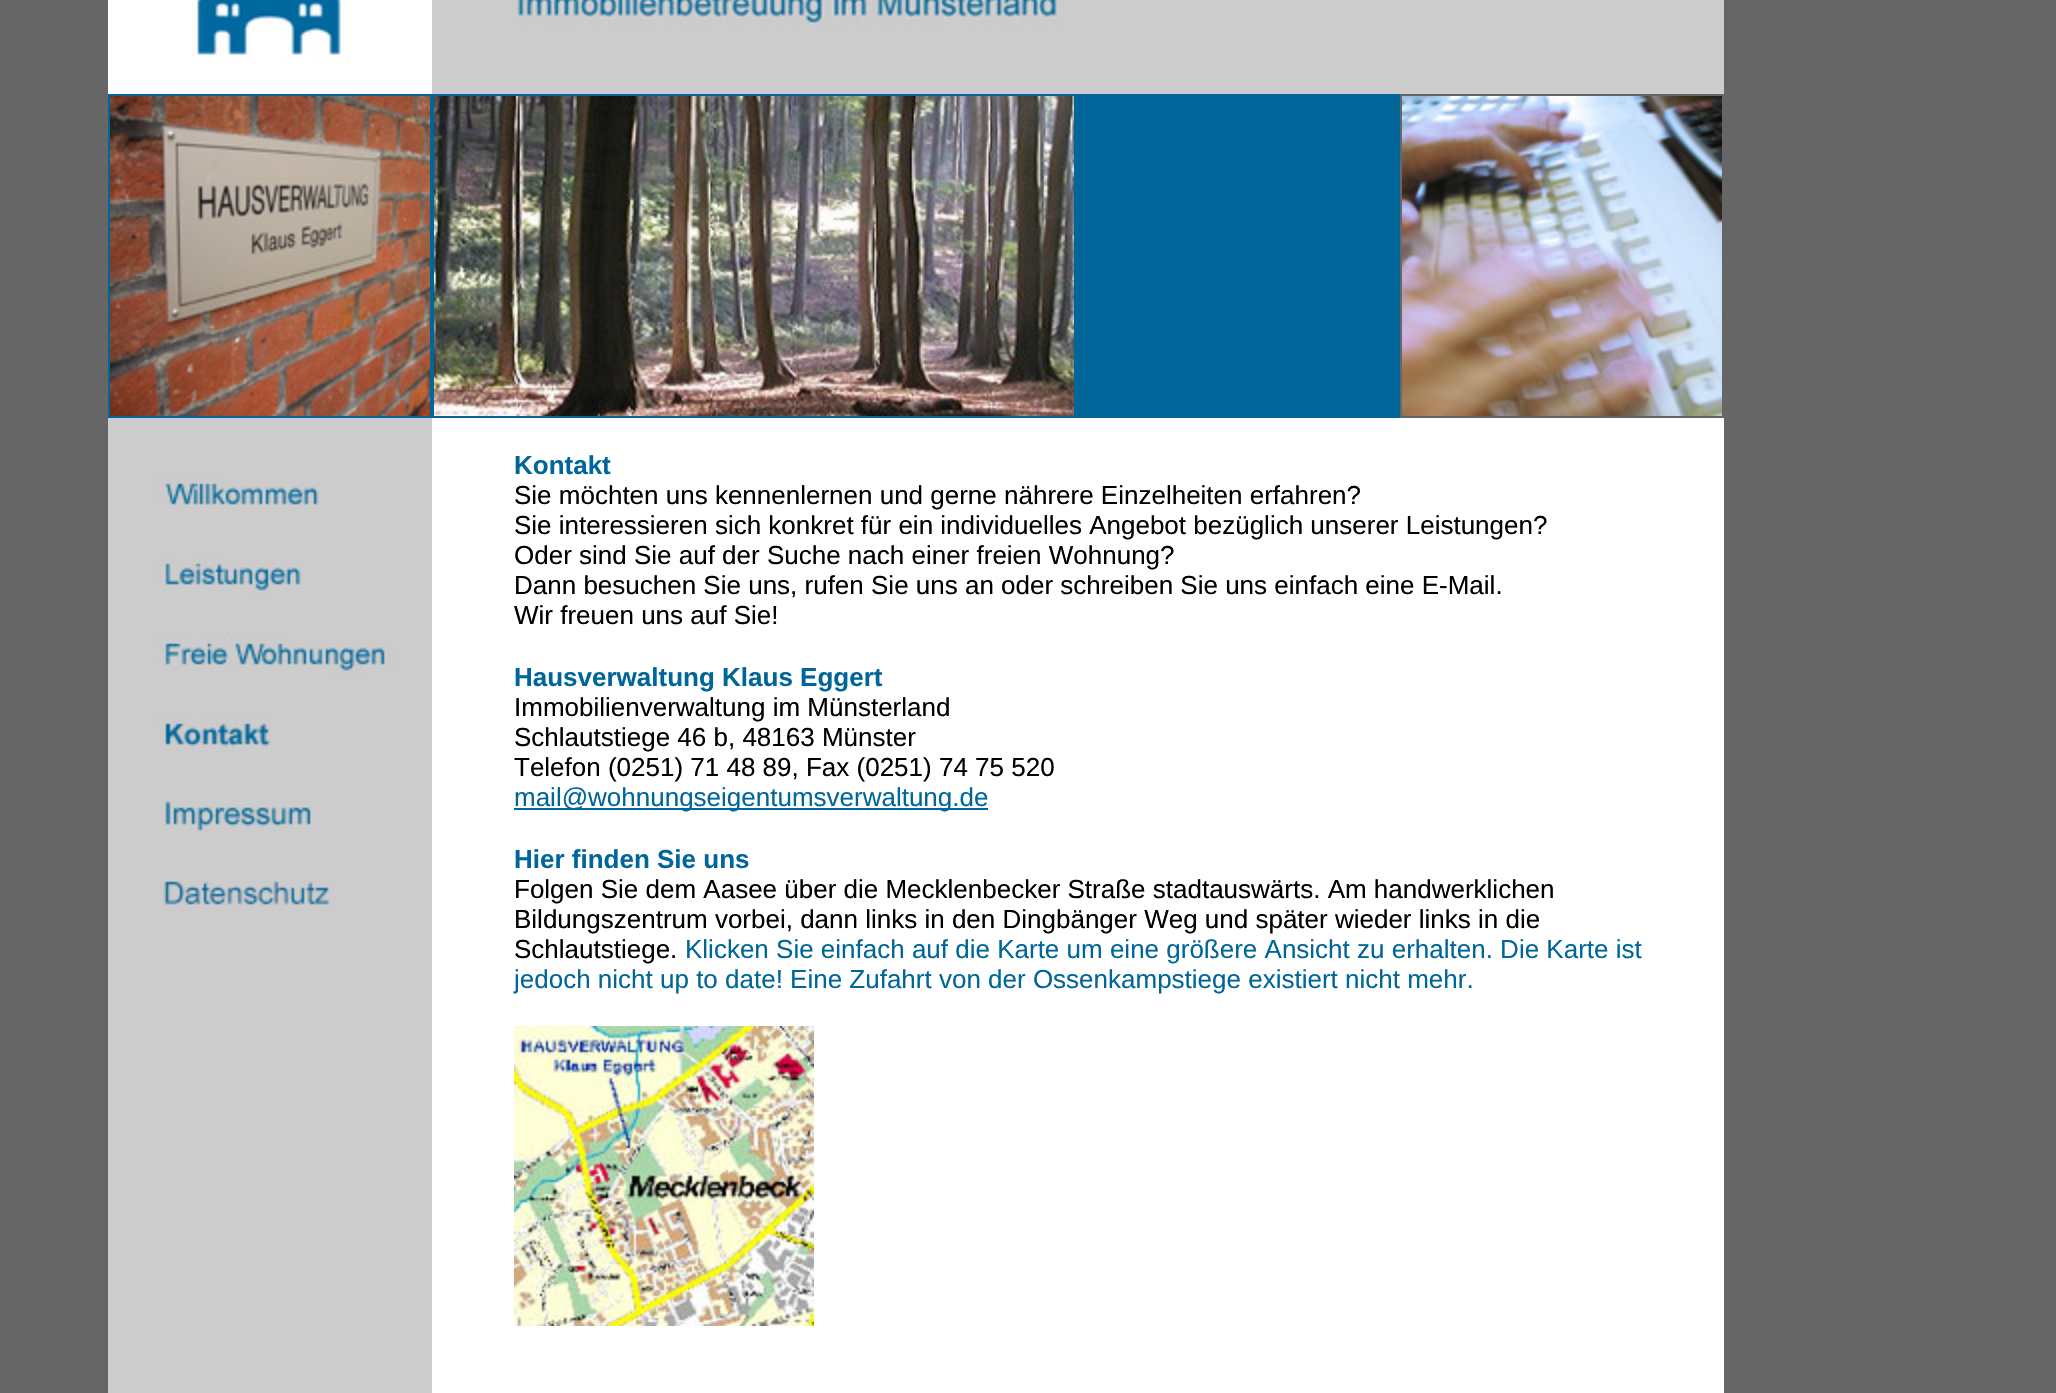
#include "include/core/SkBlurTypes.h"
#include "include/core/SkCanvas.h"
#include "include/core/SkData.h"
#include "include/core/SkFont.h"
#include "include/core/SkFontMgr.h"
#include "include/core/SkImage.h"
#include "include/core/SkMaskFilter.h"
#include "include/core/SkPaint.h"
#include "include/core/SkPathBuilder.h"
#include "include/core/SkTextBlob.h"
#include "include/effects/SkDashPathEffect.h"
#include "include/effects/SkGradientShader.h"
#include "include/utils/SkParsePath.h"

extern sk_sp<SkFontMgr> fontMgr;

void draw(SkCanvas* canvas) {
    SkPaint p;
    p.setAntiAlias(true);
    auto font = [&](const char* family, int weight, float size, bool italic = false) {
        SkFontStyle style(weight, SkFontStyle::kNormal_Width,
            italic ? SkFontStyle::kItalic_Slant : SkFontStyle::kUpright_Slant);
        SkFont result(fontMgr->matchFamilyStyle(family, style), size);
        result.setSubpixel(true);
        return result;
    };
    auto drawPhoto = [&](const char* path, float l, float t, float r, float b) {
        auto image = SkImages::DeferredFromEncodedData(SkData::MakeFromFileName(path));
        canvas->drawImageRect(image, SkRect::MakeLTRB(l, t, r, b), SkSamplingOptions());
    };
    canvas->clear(0xFF666666);
    p.setColor(0xFFFFFFFF);
    canvas->drawRect(SkRect::MakeLTRB(108, 0, 432, 94), p);
    drawPhoto("media/1.png", 192, 0, 350, 64);
    p.setColor(0xFFCCCCCC);
    canvas->drawRect(SkRect::MakeLTRB(432, 0, 1724, 94), p);
    drawPhoto("media/2.png", 516, 0, 1060, 26);
    p.setColor(0xFF006699);
    canvas->drawRect(SkRect::MakeLTRB(108, 94, 1400, 418), p);
    drawPhoto("media/3.png", 110, 96, 430, 416);
    drawPhoto("media/4.png", 434, 96, 1074, 416);
    drawPhoto("media/5.png", 1402, 96, 1722, 416);
    p.setColor(0xFFCCCCCC);
    canvas->drawRect(SkRect::MakeLTRB(108, 418, 432, 1393), p);
    drawPhoto("media/6.png", 158, 472, 319, 505);
    drawPhoto("media/7.png", 158, 552, 302, 600);
    drawPhoto("media/8.png", 158, 632, 396, 680);
    drawPhoto("media/9.png", 158, 712, 271, 748);
    drawPhoto("media/10.png", 165, 801, 311, 831);
    drawPhoto("media/11.png", 163, 881, 331, 905);
    p.setColor(0xFFFFFFFF);
    canvas->drawRect(SkRect::MakeLTRB(432, 418, 1724, 1393), p);
    auto font1 = font("Liberation Sans", 700, 26);
    p.setColor(0xFF006699);
    canvas->drawString("Kontakt", 514, 474, font1, p);
    auto font2 = font("Liberation Sans", 400, 26);
    p.setColor(0xFF000000);
    {
        const struct { const char* s; float x, y; } items[] = {
            {"Sie möchten uns kennenlernen und gerne nährere Einzelheiten erfahren?", 514, 504},
            {"Sie interessieren sich konkret für ein individuelles Angebot bezüglich unserer Leistungen?", 514, 534},
            {"Oder sind Sie auf der Suche nach einer freien Wohnung?", 514, 564},
            {"Dann besuchen Sie uns, rufen Sie uns an oder schreiben Sie uns einfach eine E-Mail.", 514, 594},
            {"Wir freuen uns auf Sie!", 514, 624},
        };
        for (auto [s, x, y] : items) {
            canvas->drawString(s, x, y, font2, p);
        }
    }
    p.setColor(0xFF006699);
    canvas->drawString("Hausverwaltung Klaus Eggert", 514, 686, font1, p);
    p.setColor(0xFF000000);
    {
        const struct { const char* s; float x, y; } items[] = {
            {"Immobilienverwaltung im Münsterland", 514, 716},
            {"Schlautstiege 46 b, 48163 Münster", 514, 746},
            {"Telefon (0251) 71 48 89, Fax (0251) 74 75 520", 514, 776},
        };
        for (auto [s, x, y] : items) {
            canvas->drawString(s, x, y, font2, p);
        }
    }
    p.setColor(0xFF006699);
    canvas->drawRect(SkRect::MakeLTRB(514, 808, 988, 810), p);
    canvas->drawString("mail@wohnungseigentumsverwaltung.de", 514, 806, font2, p);
    canvas->drawString("Hier finden Sie uns", 514, 868, font1, p);
    p.setColor(0xFF000000);
    {
        const struct { const char* s; float x, y; } items[] = {
            {"Folgen Sie dem Aasee über die Mecklenbecker Straße stadtauswärts. Am handwerklichen", 514, 898},
            {"Bildungszentrum vorbei, dann links in den Dingbänger Weg und später wieder links in die", 514, 928},
            {"Schlautstiege.", 514, 958},
        };
        for (auto [s, x, y] : items) {
            canvas->drawString(s, x, y, font2, p);
        }
    }
    p.setColor(0xFF006699);
    canvas->drawString("Klicken Sie einfach auf die Karte um eine größere Ansicht zu erhalten. Die Karte ist", 685, 958, font2, p);
    canvas->drawString("jedoch nicht up to date! Eine Zufahrt von der Ossenkampstiege existiert nicht mehr.", 514, 988, font2, p);
    drawPhoto("media/12.png", 514, 1026, 814, 1326);
}
